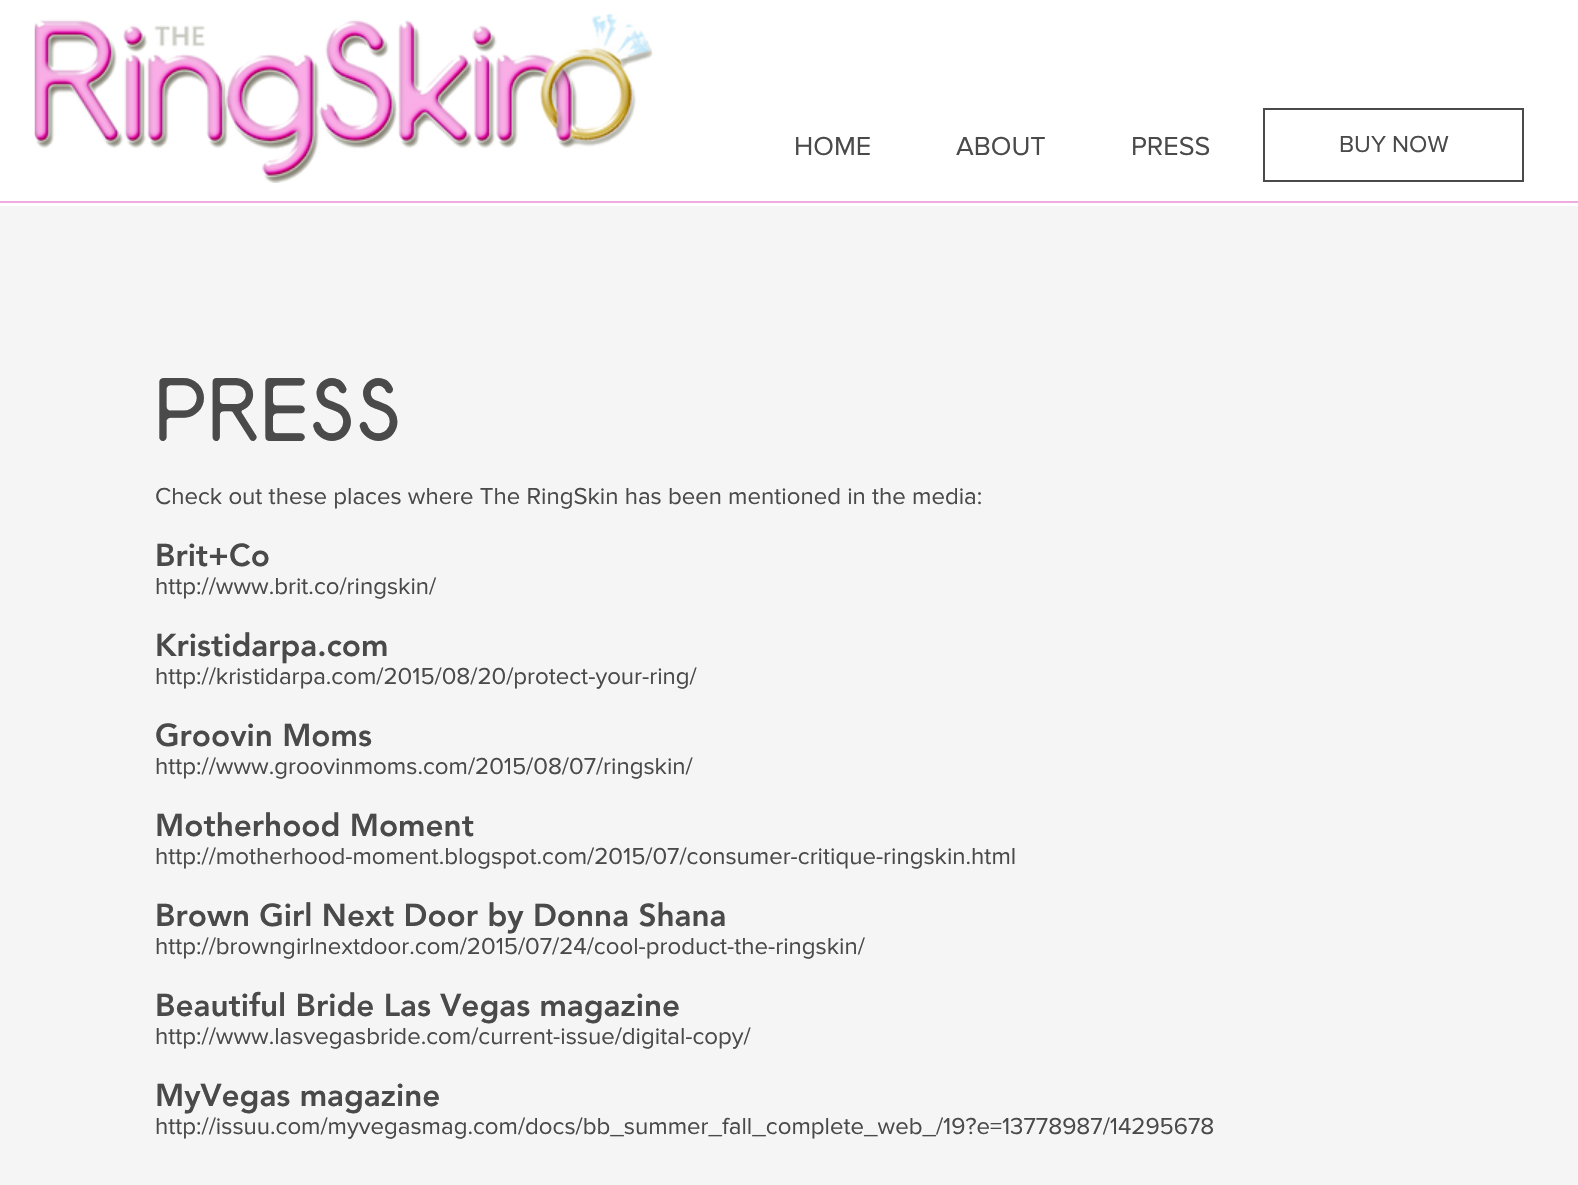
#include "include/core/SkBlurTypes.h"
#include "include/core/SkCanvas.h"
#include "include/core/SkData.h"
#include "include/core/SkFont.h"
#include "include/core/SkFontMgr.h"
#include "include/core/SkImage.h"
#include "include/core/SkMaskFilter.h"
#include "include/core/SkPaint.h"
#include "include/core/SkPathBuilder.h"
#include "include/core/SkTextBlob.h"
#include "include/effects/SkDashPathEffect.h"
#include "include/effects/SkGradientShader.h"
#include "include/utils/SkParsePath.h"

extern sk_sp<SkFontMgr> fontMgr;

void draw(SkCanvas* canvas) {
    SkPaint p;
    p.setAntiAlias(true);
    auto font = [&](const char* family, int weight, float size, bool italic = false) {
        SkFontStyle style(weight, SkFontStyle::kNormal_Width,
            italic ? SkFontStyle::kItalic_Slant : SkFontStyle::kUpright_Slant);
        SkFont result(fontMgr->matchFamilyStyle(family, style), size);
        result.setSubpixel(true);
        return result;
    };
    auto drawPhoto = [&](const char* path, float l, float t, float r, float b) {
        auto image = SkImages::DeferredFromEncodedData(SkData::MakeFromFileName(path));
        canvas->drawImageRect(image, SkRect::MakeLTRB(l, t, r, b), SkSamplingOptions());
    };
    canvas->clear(0xFFFFFFFF);
    drawPhoto("media/1.png", 34, 13, 653, 183);
    auto font1 = font("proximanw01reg", 400, 27);
    p.setColor(0xFF4A4A4A);
    {
        const struct { const char* s; float x, y; } items[] = {
            {"HOME", 794, 155},
            {"ABOUT", 956, 155},
            {"PRESS", 1131, 155},
        };
        for (auto [s, x, y] : items) {
            canvas->drawString(s, x, y, font1, p);
        }
    }
    p.setStyle(SkPaint::kStroke_Style);
    p.setStrokeWidth(2);
    canvas->drawRect(SkRect::MakeLTRB(1264, 109, 1523, 181), p);
    auto font2 = font("proximanw01reg", 400, 24);
    p.setStyle(SkPaint::kFill_Style);
    canvas->drawString("BUY NOW", 1339, 152, font2, p);
    p.setColor(0xFFF0ABDF);
    canvas->drawRect(SkRect::MakeLTRB(0, 201, 1578, 203), p);
    p.setColor(0xFFF5F5F5);
    canvas->drawRect(SkRect::MakeLTRB(0, 206, 1578, 1185), p);
    auto font3 = font("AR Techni", 400, 90);
    p.setColor(0xFF4A4A4A);
    canvas->drawString("PRESS", 155, 441, font3, p);
    canvas->drawString("Check out these places where The RingSkin has been mentioned in the media:", 155, 504, font2, p);
    auto font4 = font("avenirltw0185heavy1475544", 900, 31.5f);
    canvas->drawString("Brit+Co", 155, 566, font4, p);
    canvas->drawString("http://www.brit.co/ringskin/", 155, 594, font2, p);
    canvas->drawString("Kristidarpa.com", 155, 656, font4, p);
    canvas->drawString("http://kristidarpa.com/2015/08/20/protect-your-ring/", 155, 684, font2, p);
    canvas->drawString("Groovin Moms", 155, 746, font4, p);
    canvas->drawString("http://www.groovinmoms.com/2015/08/07/ringskin/", 155, 774, font2, p);
    canvas->drawString("Motherhood Moment", 155, 836, font4, p);
    canvas->drawString("http://motherhood-moment.blogspot.com/2015/07/consumer-critique-ringskin.html", 155, 864, font2, p);
    canvas->drawString("Brown Girl Next Door by Donna Shana", 155, 926, font4, p);
    canvas->drawString("http://browngirlnextdoor.com/2015/07/24/cool-product-the-ringskin/", 155, 954, font2, p);
    canvas->drawString("Beautiful Bride Las Vegas magazine", 155, 1016, font4, p);
    canvas->drawString("http://www.lasvegasbride.com/current-issue/digital-copy/", 155, 1044, font2, p);
    canvas->drawString("MyVegas magazine", 155, 1106, font4, p);
    canvas->drawString("http://issuu.com/myvegasmag.com/docs/bb_summer_fall_complete_web_/19?e=13778987/14295678", 155, 1134, font2, p);
}
